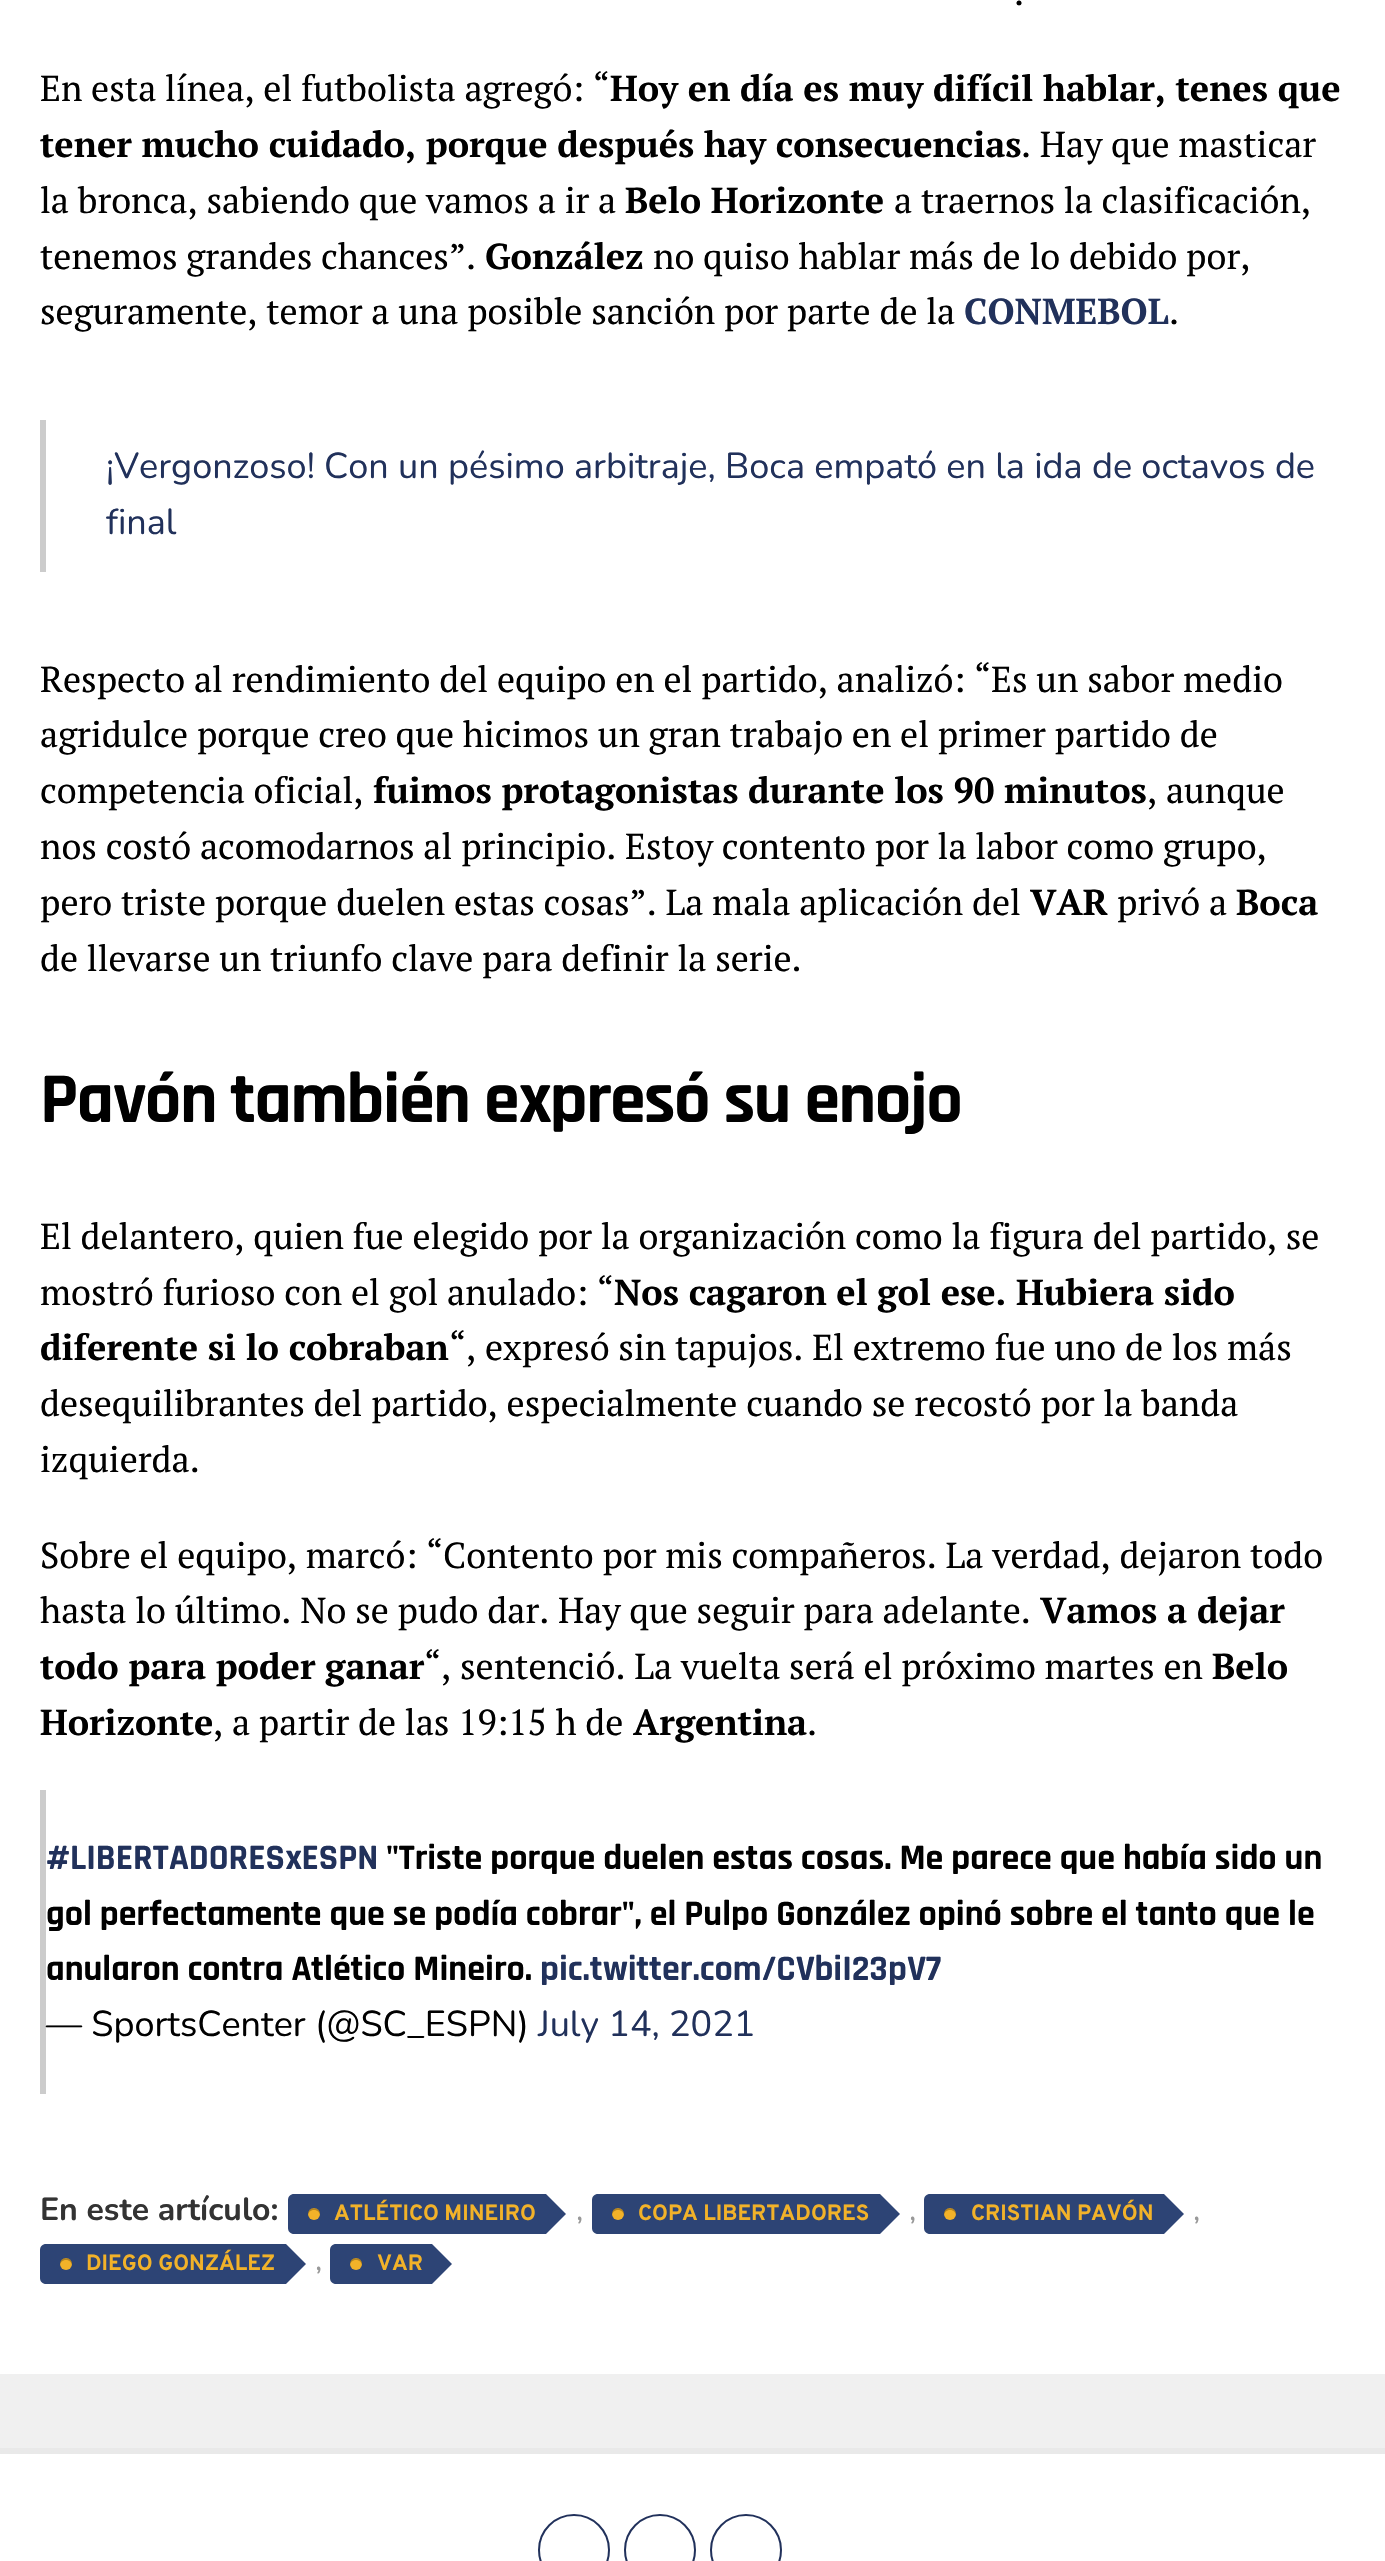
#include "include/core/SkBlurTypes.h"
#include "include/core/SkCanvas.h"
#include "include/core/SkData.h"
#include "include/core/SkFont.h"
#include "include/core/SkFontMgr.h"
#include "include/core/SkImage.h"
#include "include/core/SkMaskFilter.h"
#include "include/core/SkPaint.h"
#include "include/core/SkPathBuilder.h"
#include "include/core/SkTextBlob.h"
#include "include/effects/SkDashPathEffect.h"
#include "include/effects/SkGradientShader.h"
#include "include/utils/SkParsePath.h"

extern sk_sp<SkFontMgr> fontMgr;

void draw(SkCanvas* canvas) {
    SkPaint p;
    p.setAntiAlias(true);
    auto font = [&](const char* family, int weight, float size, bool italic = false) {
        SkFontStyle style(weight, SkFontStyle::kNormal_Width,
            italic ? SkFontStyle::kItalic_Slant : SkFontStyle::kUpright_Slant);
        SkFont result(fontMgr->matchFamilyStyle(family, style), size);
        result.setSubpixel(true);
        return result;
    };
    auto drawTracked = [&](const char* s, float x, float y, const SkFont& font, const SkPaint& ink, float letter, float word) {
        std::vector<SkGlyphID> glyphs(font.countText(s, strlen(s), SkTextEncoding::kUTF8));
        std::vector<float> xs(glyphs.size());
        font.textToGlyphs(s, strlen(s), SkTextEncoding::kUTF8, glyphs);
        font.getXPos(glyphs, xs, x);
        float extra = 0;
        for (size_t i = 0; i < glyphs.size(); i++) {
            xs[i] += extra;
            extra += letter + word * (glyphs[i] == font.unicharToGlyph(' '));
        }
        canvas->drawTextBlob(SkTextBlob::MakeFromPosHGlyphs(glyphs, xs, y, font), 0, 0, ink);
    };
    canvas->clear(0xFFF0F0F0);
    p.setColor(0xFFFFFFFF);
    canvas->drawRect(SkRect::MakeLTRB(0, 0, 1385, 2374), p);
    auto font1 = font("PT Serif", 400, 36);
    p.setColor(0xFF000000);
    canvas->drawString(".", 1014, 5, font1, p);
    canvas->drawString("En esta línea, el futbolista agregó: “", 40, 101, font1, p);
    auto font2 = font("PT Serif", 700, 36);
    canvas->drawString("Hoy en día es muy difícil hablar, tenes que", 610, 101, font2, p);
    canvas->drawString("tener mucho cuidado, porque después hay consecuencias", 40, 157, font2, p);
    canvas->drawString(". Hay que masticar", 1021, 157, font1, p);
    canvas->drawString("la bronca, sabiendo que vamos a ir a", 40, 213, font1, p);
    canvas->drawString("Belo Horizonte", 625, 213, font2, p);
    canvas->drawString("a traernos la clasificación,", 894, 213, font1, p);
    canvas->drawString("tenemos grandes chances”.", 40, 269, font1, p);
    canvas->drawString("González", 485, 269, font2, p);
    canvas->drawString("no quiso hablar más de lo debido por,", 653, 269, font1, p);
    canvas->drawString("seguramente, temor a una posible sanción por parte de la", 40, 324, font1, p);
    p.setColor(0xFF21315B);
    canvas->drawString("CONMEBOL", 964, 324, font2, p);
    p.setColor(0xFF000000);
    canvas->drawString(".", 1169, 324, font1, p);
    p.setColor(0xFFCCCCCC);
    canvas->drawRect(SkRect::MakeLTRB(40, 420, 46, 572), p);
    auto font3 = font("Nunito", 400, 36);
    p.setColor(0xFF21315B);
    canvas->drawString("¡Vergonzoso! Con un pésimo arbitraje, Boca empató en la ida de octavos de", 106, 478, font3, p);
    canvas->drawString("final", 106, 534, font3, p);
    p.setColor(0xFF000000);
    {
        const struct { const char* s; float x, y; } items[] = {
            {"Respecto al rendimiento del equipo en el partido, analizó: “Es un sabor medio", 40, 692},
            {"agridulce porque creo que hicimos un gran trabajo en el primer partido de", 40, 747},
            {"competencia oficial,", 40, 803},
        };
        for (auto [s, x, y] : items) {
            canvas->drawString(s, x, y, font1, p);
        }
    }
    canvas->drawString("fuimos protagonistas durante los 90 minutos", 373, 803, font2, p);
    {
        const struct { const char* s; float x, y; } items[] = {
            {", aunque", 1147, 803},
            {"nos costó acomodarnos al principio. Estoy contento por la labor como grupo,", 40, 859},
            {"pero triste porque duelen estas cosas”. La mala aplicación del", 40, 915},
        };
        for (auto [s, x, y] : items) {
            canvas->drawString(s, x, y, font1, p);
        }
    }
    canvas->drawString("VAR", 1030, 915, font2, p);
    canvas->drawString("privó a", 1117, 915, font1, p);
    canvas->drawString("Boca", 1236, 915, font2, p);
    canvas->drawString("de llevarse un triunfo clave para definir la serie.", 40, 971, font1, p);
    auto font4 = font("Rajdhani", 700, 72);
    drawTracked("Pavón también expresó su enojo", 40, 1122, font4, p, -1.45f, 0);
    canvas->drawString("El delantero, quien fue elegido por la organización como la figura del partido, se", 40, 1249, font1, p);
    canvas->drawString("mostró furioso con el gol anulado: “", 40, 1305, font1, p);
    canvas->drawString("Nos cagaron el gol ese. Hubiera sido", 614, 1305, font2, p);
    canvas->drawString("diferente si lo cobraban", 40, 1360, font2, p);
    {
        const struct { const char* s; float x, y; } items[] = {
            {"“, expresó sin tapujos. El extremo fue uno de los más", 449, 1360},
            {"desequilibrantes del partido, especialmente cuando se recostó por la banda", 40, 1416},
            {"izquierda.", 40, 1472},
            {"Sobre el equipo, marcó: “Contento por mis compañeros. La verdad, dejaron todo", 40, 1568},
            {"hasta lo último. No se pudo dar. Hay que seguir para adelante.", 40, 1623},
        };
        for (auto [s, x, y] : items) {
            canvas->drawString(s, x, y, font1, p);
        }
    }
    canvas->drawString("Vamos a dejar", 1040, 1623, font2, p);
    canvas->drawString("todo para poder ganar", 40, 1679, font2, p);
    canvas->drawString("“, sentenció. La vuelta será el próximo martes en", 424, 1679, font1, p);
    canvas->drawString("Belo", 1212, 1679, font2, p);
    canvas->drawString("Horizonte", 40, 1735, font2, p);
    canvas->drawString(", a partir de las 19:15 h de", 213, 1735, font1, p);
    canvas->drawString("Argentina", 633, 1735, font2, p);
    canvas->drawString(".", 807, 1735, font1, p);
    p.setColor(0xFFCCCCCC);
    canvas->drawRect(SkRect::MakeLTRB(40, 1790, 46, 2094), p);
    auto font5 = font("Rajdhani", 700, 36);
    p.setColor(0xFF21315B);
    canvas->drawString("#LIBERTADORESxESPN", 46, 1869, font5, p);
    p.setColor(0xFF000000);
    {
        const struct { const char* s; float x, y; } items[] = {
            {"\"Triste porque duelen estas cosas. Me parece que había sido un", 386, 1869},
            {"gol perfectamente que se podía cobrar\", el Pulpo González opinó sobre el tanto que le", 46, 1925},
            {"anularon contra Atlético Mineiro.", 46, 1980},
        };
        for (auto [s, x, y] : items) {
            canvas->drawString(s, x, y, font5, p);
        }
    }
    p.setColor(0xFF21315B);
    canvas->drawString("pic.twitter.com/CVbiI23pV7", 540, 1980, font5, p);
    p.setColor(0xFF000000);
    canvas->drawString("— SportsCenter (@SC_ESPN)", 46, 2036, font3, p);
    p.setColor(0xFF21315B);
    canvas->drawString("July 14, 2021", 538, 2036, font3, p);
    auto font6 = font("Nunito", 700, 32);
    p.setColor(0xFF333333);
    canvas->drawString("En este artículo:", 40, 2220, font6, p);
    p.setColor(0xFF2D4475);
    canvas->drawPath(SkPathBuilder().moveTo(294, 2194).lineTo(546, 2194).lineTo(546, 2234).lineTo(294, 2234).cubicTo(290.5f, 2234, 288, 2231.5f, 288, 2228).lineTo(288, 2200).cubicTo(288, 2196.5f, 290.5f, 2194, 294, 2194).close().detach(), p);
    p.setColor(0xFFF2B229);
    canvas->drawCircle(314, 2214, 6, p);
    p.setColor(0x40000000);
    canvas->drawPath(SkPathBuilder().moveTo(314, 2210).cubicTo(317.5f, 2210, 319.5f, 2212.5f, 320, 2215).cubicTo(321.5f, 2206, 306.5f, 2206, 308, 2215).cubicTo(308.5f, 2212.5f, 310.5f, 2210, 314, 2210).close().detach(), p);
    auto font7 = font("Overpass", 700, 22);
    p.setColor(0xFFF2B229);
    canvas->drawString("ATLÉTICO MINEIRO", 334, 2220, font7, p);
    p.setColor(0xFF2D4475);
    canvas->drawPath(SkPathBuilder().moveTo(546, 2234).lineTo(546, 2194).lineTo(566, 2214).close().detach(), p);
    auto font8 = font("Nunito", 400, 32);
    p.setColor(0xFF999999);
    canvas->drawString(",", 576, 2220, font8, p);
    p.setColor(0xFF2D4475);
    canvas->drawPath(SkPathBuilder().moveTo(598, 2194).lineTo(880, 2194).lineTo(880, 2234).lineTo(598, 2234).cubicTo(594.5f, 2234, 592, 2231.5f, 592, 2228).lineTo(592, 2200).cubicTo(592, 2196.5f, 594.5f, 2194, 598, 2194).close().detach(), p);
    p.setColor(0xFFF2B229);
    canvas->drawCircle(618, 2214, 6, p);
    p.setColor(0x40000000);
    canvas->drawPath(SkPathBuilder().moveTo(618, 2210).cubicTo(621.5f, 2210, 623.5f, 2212.5f, 624, 2215).cubicTo(625.5f, 2206, 610.5f, 2206, 612, 2215).cubicTo(612.5f, 2212.5f, 614.5f, 2210, 618, 2210).close().detach(), p);
    p.setColor(0xFFF2B229);
    canvas->drawString("COPA LIBERTADORES", 638, 2220, font7, p);
    p.setColor(0xFF2D4475);
    canvas->drawPath(SkPathBuilder().moveTo(880, 2234).lineTo(880, 2194).lineTo(900, 2214).close().detach(), p);
    p.setColor(0xFF999999);
    canvas->drawString(",", 909, 2220, font8, p);
    p.setColor(0xFF2D4475);
    canvas->drawPath(SkPathBuilder().moveTo(930, 2194).lineTo(1164, 2194).lineTo(1164, 2234).lineTo(930, 2234).cubicTo(926.5f, 2234, 924, 2231.5f, 924, 2228).lineTo(924, 2200).cubicTo(924, 2196.5f, 926.5f, 2194, 930, 2194).close().detach(), p);
    p.setColor(0xFFF2B229);
    canvas->drawCircle(950, 2214, 6, p);
    p.setColor(0x40000000);
    canvas->drawPath(SkPathBuilder().moveTo(950, 2210).cubicTo(953.5f, 2210, 955.5f, 2212.5f, 956, 2215).cubicTo(957.5f, 2206, 942.5f, 2206, 944, 2215).cubicTo(944.5f, 2212.5f, 946.5f, 2210, 950, 2210).close().detach(), p);
    p.setColor(0xFFF2B229);
    canvas->drawString("CRISTIAN PAVÓN", 971, 2220, font7, p);
    p.setColor(0xFF2D4475);
    canvas->drawPath(SkPathBuilder().moveTo(1164, 2234).lineTo(1164, 2194).lineTo(1184, 2214).close().detach(), p);
    p.setColor(0xFF999999);
    canvas->drawString(",", 1193, 2220, font8, p);
    p.setColor(0xFF2D4475);
    canvas->drawPath(SkPathBuilder().moveTo(46, 2244).lineTo(286, 2244).lineTo(286, 2284).lineTo(46, 2284).cubicTo(42.5f, 2284, 40, 2281.5f, 40, 2278).lineTo(40, 2250).cubicTo(40, 2246.5f, 42.5f, 2244, 46, 2244).close().detach(), p);
    p.setColor(0xFFF2B229);
    canvas->drawCircle(66, 2264, 6, p);
    p.setColor(0x40000000);
    canvas->drawPath(SkPathBuilder().moveTo(66, 2260).cubicTo(69.5f, 2260, 71.5f, 2262.5f, 72, 2265).cubicTo(73.5f, 2256, 58.5f, 2256, 60, 2265).cubicTo(60.5f, 2262.5f, 62.5f, 2260, 66, 2260).close().detach(), p);
    p.setColor(0xFFF2B229);
    canvas->drawString("DIEGO GONZÁLEZ", 86, 2270, font7, p);
    p.setColor(0xFF2D4475);
    canvas->drawPath(SkPathBuilder().moveTo(286, 2284).lineTo(286, 2244).lineTo(306, 2264).close().detach(), p);
    p.setColor(0xFF999999);
    canvas->drawString(",", 315, 2270, font8, p);
    p.setColor(0xFF2D4475);
    canvas->drawPath(SkPathBuilder().moveTo(336, 2244).lineTo(432, 2244).lineTo(432, 2284).lineTo(336, 2284).cubicTo(332.5f, 2284, 330, 2281.5f, 330, 2278).lineTo(330, 2250).cubicTo(330, 2246.5f, 332.5f, 2244, 336, 2244).close().detach(), p);
    p.setColor(0xFFF2B229);
    canvas->drawCircle(356, 2264, 6, p);
    p.setColor(0x40000000);
    canvas->drawPath(SkPathBuilder().moveTo(356, 2260).cubicTo(359.5f, 2260, 361.5f, 2262.5f, 362, 2265).cubicTo(363.5f, 2256, 348.5f, 2256, 350, 2265).cubicTo(350.5f, 2262.5f, 352.5f, 2260, 356, 2260).close().detach(), p);
    p.setColor(0xFFF2B229);
    canvas->drawString("VAR", 377, 2270, font7, p);
    p.setColor(0xFF2D4475);
    canvas->drawPath(SkPathBuilder().moveTo(432, 2284).lineTo(432, 2244).lineTo(452, 2264).close().detach(), p);
    p.setColor(0xFFFFFFFF);
    canvas->drawRect(SkRect::MakeLTRB(0, 2454, 1385, 2561), p);
    p.setColor(0xFFE9E9E9);
    canvas->drawRect(SkRect::MakeLTRB(0, 2448, 1385, 2454), p);
    p.setStyle(SkPaint::kStroke_Style);
    p.setStrokeWidth(2);
    p.setColor(0xFF21315B);
    canvas->drawCircle(574, 2550, 35, p);
    canvas->drawCircle(660, 2550, 35, p);
    canvas->drawCircle(746, 2550, 35, p);
}
